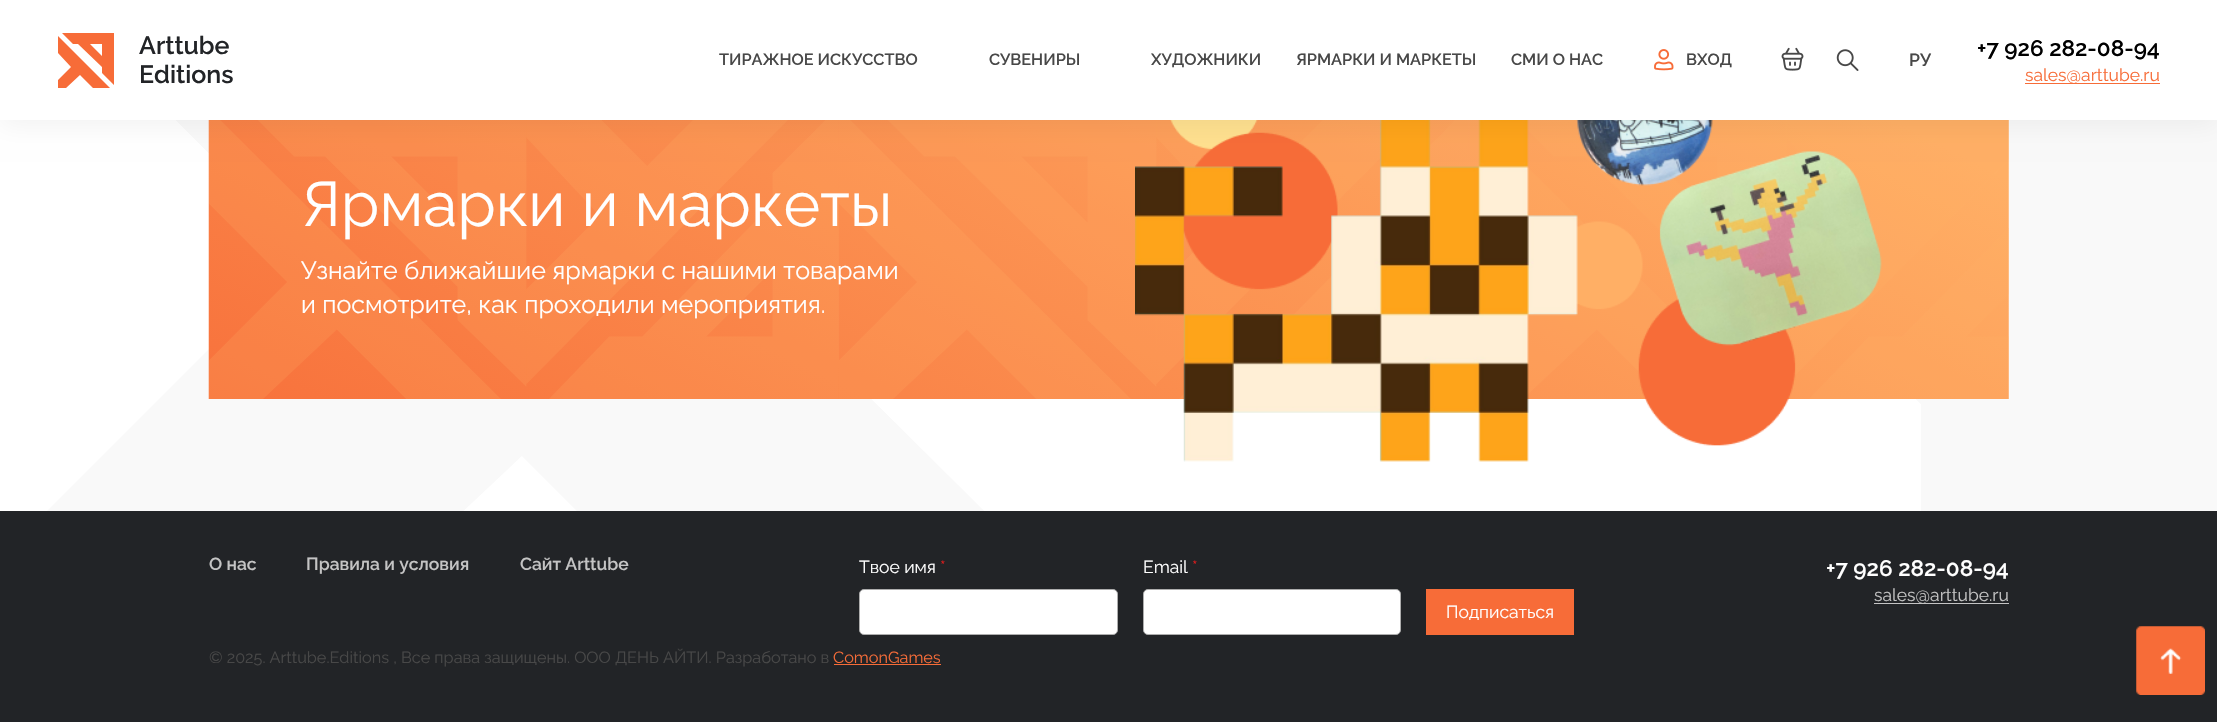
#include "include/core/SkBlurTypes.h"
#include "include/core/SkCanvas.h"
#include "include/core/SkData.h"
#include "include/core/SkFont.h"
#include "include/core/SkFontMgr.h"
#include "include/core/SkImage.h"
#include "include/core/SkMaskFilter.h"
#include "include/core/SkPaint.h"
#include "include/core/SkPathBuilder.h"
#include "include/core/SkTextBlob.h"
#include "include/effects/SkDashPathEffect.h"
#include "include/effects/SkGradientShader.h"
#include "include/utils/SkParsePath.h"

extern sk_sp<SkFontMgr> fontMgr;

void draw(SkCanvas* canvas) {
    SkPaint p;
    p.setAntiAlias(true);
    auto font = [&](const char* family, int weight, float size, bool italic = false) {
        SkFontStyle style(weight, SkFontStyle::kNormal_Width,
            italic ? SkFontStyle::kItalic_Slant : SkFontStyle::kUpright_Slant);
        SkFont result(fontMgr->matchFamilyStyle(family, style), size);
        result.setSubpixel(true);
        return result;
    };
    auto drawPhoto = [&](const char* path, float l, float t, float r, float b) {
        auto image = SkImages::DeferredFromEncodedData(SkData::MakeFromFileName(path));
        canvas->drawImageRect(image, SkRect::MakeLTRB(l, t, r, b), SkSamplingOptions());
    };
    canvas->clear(0xFFFFFFFF);
    drawPhoto("media/1.png", 47, 120, 2217, 511);
    drawPhoto("media/5.png", 208, 120, 2009, 399);
    drawPhoto("media/6.png", 1135, 120, 1882, 462);
    p.setColor(0x0D000000);
    p.setMaskFilter(SkMaskFilter::MakeBlur(kNormal_SkBlurStyle, 12.5f));
    canvas->drawRect(SkRect::MakeLTRB(0, 5, 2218, 125), p);
    p.setMaskFilter(nullptr);
    p.setColor(0xFFFFFFFF);
    canvas->drawRect(SkRect::MakeLTRB(0, 0, 2217, 120), p);
    canvas->save();
    canvas->clipRect(SkRect::MakeLTRB(58, 33, 114, 89));
    p.setColor(0xFFF76C38);
    canvas->drawPath(SkPathBuilder(SkPathFillType::kEvenOdd).moveTo(61, 32).lineTo(114, 32).lineTo(114, 85).lineTo(102, 73).lineTo(102, 67).lineTo(78, 44).lineTo(73, 44).close().moveTo(58, 36).lineTo(110, 88).lineTo(93, 88).lineTo(80, 75).lineTo(66, 88).lineTo(58, 88).lineTo(58, 80).lineTo(71, 67).lineTo(58, 53).close().moveTo(90, 44).lineTo(102, 56).lineTo(102, 44).close().detach(), p);
    canvas->restore();
    auto font1 = font("Raleway", 600, 25);
    p.setColor(0xFF222427);
    canvas->drawString("Arttube", 139, 54, font1, p);
    canvas->drawString("Editions", 139, 83, font1, p);
    auto font2 = font("Raleway", 600, 16.25f);
    p.setColor(0xFF484848);
    {
        const struct { const char* s; float x, y; } items[] = {
            {"ТИРАЖНОЕ ИСКУССТВО", 719, 65},
            {"СУВЕНИРЫ", 989, 65},
            {"ХУДОЖНИКИ", 1151, 65},
            {"ЯРМАРКИ И МАРКЕТЫ", 1296, 65},
            {"СМИ О НАС", 1511, 65},
        };
        for (auto [s, x, y] : items) {
            canvas->drawString(s, x, y, font2, p);
        }
    }
    drawPhoto("media/2.png", 1654, 49, 1674, 71);
    canvas->drawString("ВХОД", 1686, 65, font2, p);
    drawPhoto("media/3.png", 1781, 47, 1804, 71);
    drawPhoto("media/4.png", 1836, 49, 1859, 71);
    auto font3 = font("Raleway", 600, 17.5f);
    canvas->drawString("РУ", 1909, 66, font3, p);
    auto font4 = font("Raleway", 600, 22.5f);
    p.setColor(0xFF000000);
    canvas->drawString("+7 926 282-08-94", 1977, 56, font4, p);
    p.setColor(0xFFF76C38);
    canvas->drawRect(SkRect::MakeLTRB(2025, 83, 2160, 84), p);
    auto font5 = font("Raleway", 400, 17.5f);
    canvas->drawString("sales@arttube.ru", 2025, 81, font5, p);
    auto font6 = font("Raleway", 400, 62.5f);
    p.setColor(0xFFFFFFFF);
    canvas->drawString("Ярмарки и маркеты", 301, 226, font6, p);
    auto font7 = font("Raleway", 400, 25);
    canvas->drawString("Узнайте ближайшие ярмарки с нашими товарами", 301, 279, font7, p);
    canvas->drawString("и посмотрите, как проходили мероприятия.", 301, 313, font7, p);
    p.setColor(0xFF222427);
    canvas->drawRect(SkRect::MakeLTRB(0, 511, 2217, 722), p);
    p.setColor(0xFFC4C4C4);
    {
        const struct { const char* s; float x, y; } items[] = {
            {"О нас", 209, 570},
            {"Правила и условия", 306, 570},
            {"Сайт Arttube", 520, 570},
        };
        for (auto [s, x, y] : items) {
            canvas->drawString(s, x, y, font3, p);
        }
    }
    p.setColor(0xFFFFFFFF);
    canvas->drawString("Твое имя", 859, 573, font5, p);
    p.setColor(0xFFDF1B1B);
    canvas->drawString("*", 940, 573, font5, p);
    p.setColor(0xFFFFFFFF);
    canvas->drawRoundRect(SkRect::MakeLTRB(859.5f, 589.5f, 1117.5f, 634.5f), 4.5f, 4.5f, p);
    p.setStyle(SkPaint::kStroke_Style);
    p.setStrokeWidth(1);
    p.setColor(0xFFADADAD);
    canvas->drawRoundRect(SkRect::MakeLTRB(859.5f, 589.5f, 1117.5f, 634.5f), 4.5f, 4.5f, p);
    p.setStyle(SkPaint::kFill_Style);
    p.setColor(0xFFFFFFFF);
    canvas->drawString("Email", 1143, 573, font5, p);
    p.setColor(0xFFDF1B1B);
    canvas->drawString("*", 1192, 573, font5, p);
    p.setColor(0xFFFFFFFF);
    canvas->drawRoundRect(SkRect::MakeLTRB(1143.5f, 589.5f, 1400.5f, 634.5f), 4.5f, 4.5f, p);
    p.setStyle(SkPaint::kStroke_Style);
    p.setColor(0xFFADADAD);
    canvas->drawRoundRect(SkRect::MakeLTRB(1143.5f, 589.5f, 1400.5f, 634.5f), 4.5f, 4.5f, p);
    p.setStyle(SkPaint::kFill_Style);
    p.setColor(0xFFF76C38);
    canvas->drawRect(SkRect::MakeLTRB(1426, 589, 1574, 635), p);
    p.setColor(0xFFFFFFFF);
    canvas->drawString("Подписаться", 1446, 618, font5, p);
    canvas->drawString("+7 926 282-08-94", 1826, 576, font4, p);
    p.setColor(0xFFC4C4C4);
    canvas->drawRect(SkRect::MakeLTRB(1874, 603, 2009, 604), p);
    canvas->drawString("sales@arttube.ru", 1874, 601, font5, p);
    auto font8 = font("Raleway", 400, 16.25f);
    p.setColor(0xFF484848);
    canvas->drawString("© 2025. Arttube.Editions , Все права защищены. ООО ДЕНЬ АЙТИ. Разработано в", 209, 663, font8, p);
    p.setColor(0xFFF76C38);
    canvas->drawString("ComonGames", 833, 663, font8, p);
    canvas->drawRect(SkRect::MakeLTRB(834, 664, 941, 665), p);
    drawPhoto("media/7.png", 2136, 626, 2205, 695);
}
